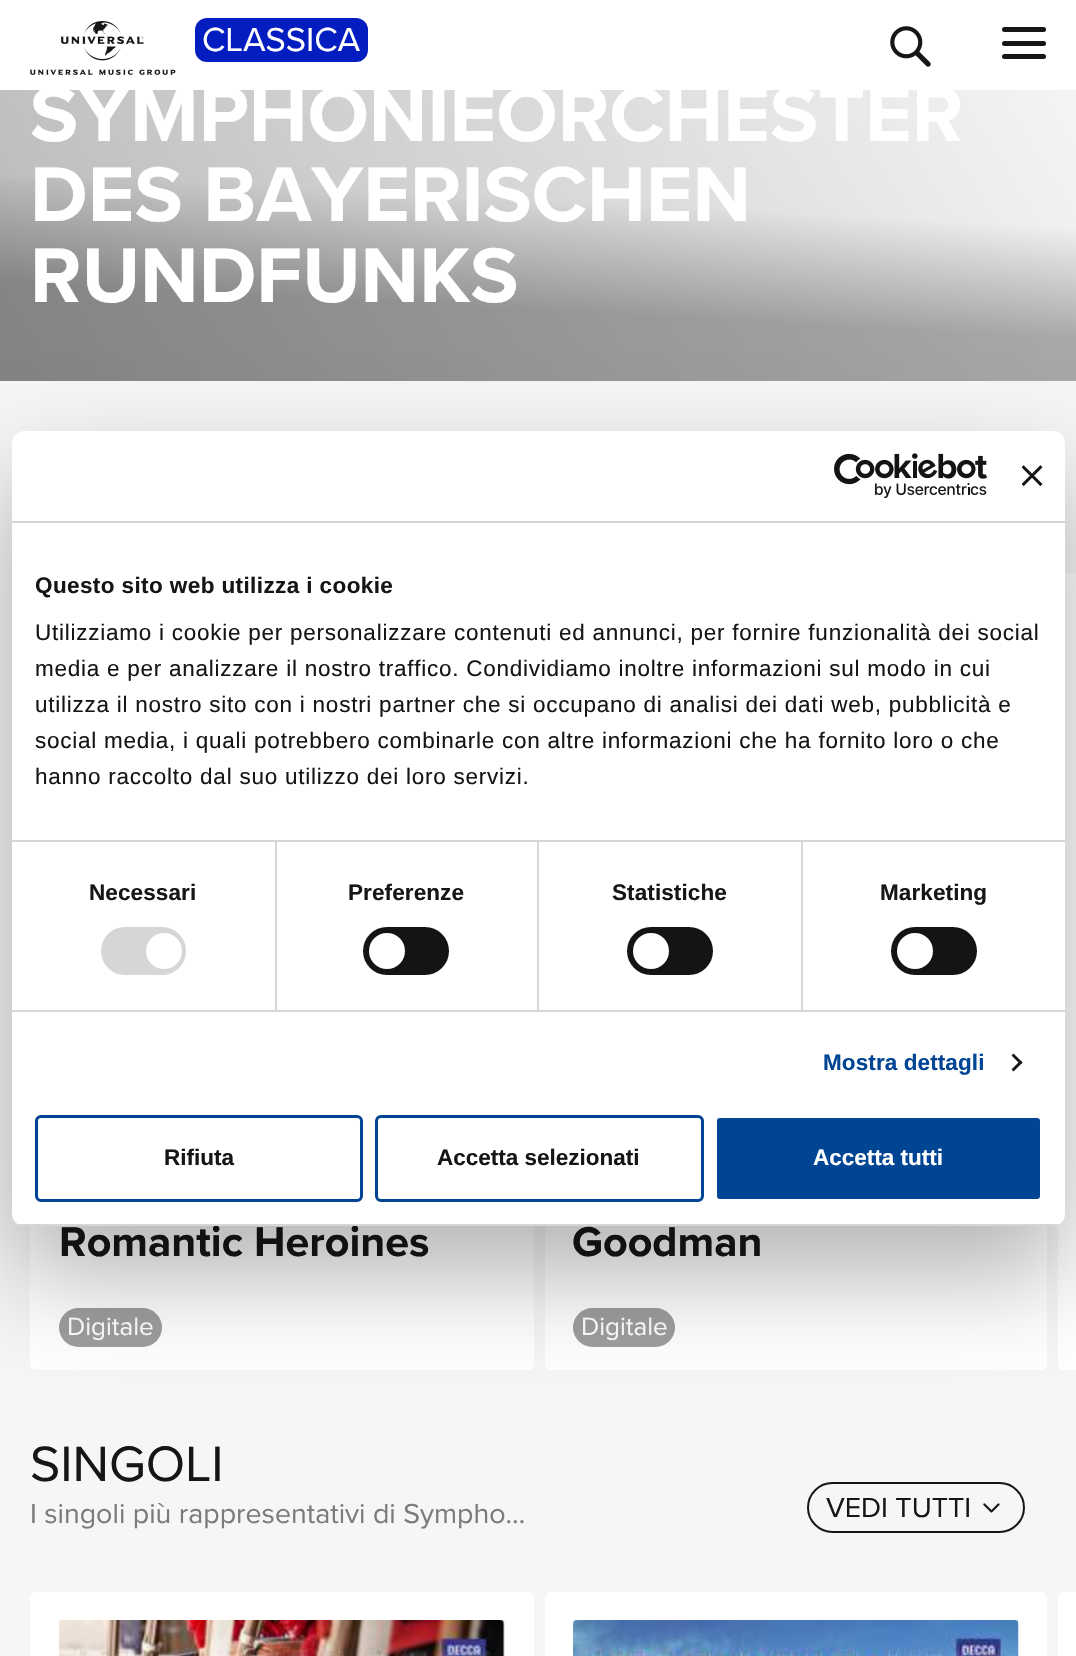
#include "include/core/SkBlurTypes.h"
#include "include/core/SkCanvas.h"
#include "include/core/SkData.h"
#include "include/core/SkFont.h"
#include "include/core/SkFontMgr.h"
#include "include/core/SkImage.h"
#include "include/core/SkMaskFilter.h"
#include "include/core/SkPaint.h"
#include "include/core/SkPathBuilder.h"
#include "include/core/SkTextBlob.h"
#include "include/effects/SkDashPathEffect.h"
#include "include/effects/SkGradientShader.h"
#include "include/utils/SkParsePath.h"

extern sk_sp<SkFontMgr> fontMgr;

void draw(SkCanvas* canvas) {
    SkPaint p;
    p.setAntiAlias(true);
    auto font = [&](const char* family, int weight, float size, bool italic = false) {
        SkFontStyle style(weight, SkFontStyle::kNormal_Width,
            italic ? SkFontStyle::kItalic_Slant : SkFontStyle::kUpright_Slant);
        SkFont result(fontMgr->matchFamilyStyle(family, style), size);
        result.setSubpixel(true);
        return result;
    };
    auto drawTracked = [&](const char* s, float x, float y, const SkFont& font, const SkPaint& ink, float letter, float word) {
        std::vector<SkGlyphID> glyphs(font.countText(s, strlen(s), SkTextEncoding::kUTF8));
        std::vector<float> xs(glyphs.size());
        font.textToGlyphs(s, strlen(s), SkTextEncoding::kUTF8, glyphs);
        font.getXPos(glyphs, xs, x);
        float extra = 0;
        for (size_t i = 0; i < glyphs.size(); i++) {
            xs[i] += extra;
            extra += letter + word * (glyphs[i] == font.unicharToGlyph(' '));
        }
        canvas->drawTextBlob(SkTextBlob::MakeFromPosHGlyphs(glyphs, xs, y, font), 0, 0, ink);
    };
    auto drawPhoto = [&](const char* path, float l, float t, float r, float b) {
        auto image = SkImages::DeferredFromEncodedData(SkData::MakeFromFileName(path));
        canvas->drawImageRect(image, SkRect::MakeLTRB(l, t, r, b), SkSamplingOptions());
    };
    canvas->clear(0xFFF6F6F6);
    p.setColor(0xFFFFFFFF);
    canvas->drawRect(SkRect::MakeLTRB(0, 0, 1076, 90), p);
    drawPhoto("media/1.png", 30, 21, 176, 75);
    p.setColor(0xFF041DC0);
    canvas->drawRoundRect(SkRect::MakeLTRB(195, 18, 368, 62), 12, 12, p);
    auto font1 = font("Proxima Nova", 400, 34.5f);
    p.setColor(0xFFFFFFFF);
    canvas->drawString("CLASSICA", 202, 51, font1, p);
    drawPhoto("media/2.png", 890, 26, 931, 67);
    p.setColor(0xFF161616);
    canvas->drawRoundRect(SkRect::MakeLTRB(1002, 41, 1046, 46), 2.5f, 2.5f, p);
    canvas->drawRoundRect(SkRect::MakeLTRB(1002, 27, 1046, 32), 2.5f, 2.5f, p);
    canvas->drawRoundRect(SkRect::MakeLTRB(1002, 54, 1046, 59), 2.5f, 2.5f, p);
    {
        const SkColor colors[] = {0xFFF7F7F7, 0xFFB9B9B9};
        const float stops[] = {0, 0.98f};
        const SkPoint ends[] = {{1010, -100}, {67, 489}};
        p.setShader(SkGradientShader::MakeLinear(ends, colors, stops, 2, SkTileMode::kClamp));
        p.setAlpha(255);
    }
    canvas->drawRect(SkRect::MakeLTRB(0, 90, 1076, 381), p);
    auto font2 = font("Proxima Nova", 700, 80.3f);
    p.setShader(nullptr);
    p.setColor(0xFFFFFFFF);
    canvas->drawString("SYMPHONIEORCHESTER", 30, 141, font2, p);
    {
        const SkColor colors[] = {0x00000000, 0x4A000000};
        const float stops[] = {0.51f, 0.77f};
        const SkPoint ends[] = {{550, -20}, {527, 409}};
        p.setShader(SkGradientShader::MakeLinear(ends, colors, stops, 2, SkTileMode::kClamp));
        p.setAlpha(255);
    }
    canvas->drawRect(SkRect::MakeLTRB(0, 178, 1076, 381), p);
    p.setShader(nullptr);
    p.setColor(0xFFFFFFFF);
    canvas->drawString("DES BAYERISCHEN", 30, 221, font2, p);
    canvas->drawString("RUNDFUNKS", 30, 302, font2, p);
    canvas->drawRoundRect(SkRect::MakeLTRB(30, 573, 534, 1370), 6, 6, p);
    auto font3 = font("Proxima Nova", 700, 43);
    p.setColor(0xFF161616);
    canvas->drawString("Romantic Heroines", 59, 1256, font3, p);
    p.setColor(0xFF9E9E9E);
    canvas->drawRoundRect(SkRect::MakeLTRB(59, 1308, 162, 1347), 19.5f, 19.5f, p);
    auto font4 = font("Proxima Nova", 400, 26);
    p.setColor(0xFFFFFFFF);
    canvas->drawString("Digitale", 67, 1335, font4, p);
    canvas->drawRoundRect(SkRect::MakeLTRB(545, 573, 1047, 1370), 6, 6, p);
    p.setColor(0xFF161616);
    canvas->drawString("Goodman", 572, 1256, font3, p);
    p.setColor(0xFF9E9E9E);
    canvas->drawRoundRect(SkRect::MakeLTRB(573, 1308, 675, 1347), 19.5f, 19.5f, p);
    p.setColor(0xFFFFFFFF);
    canvas->drawString("Digitale", 581, 1335, font4, p);
    canvas->drawPath(SkPathBuilder().moveTo(1064, 573).lineTo(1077, 573).lineTo(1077, 1370).lineTo(1064, 1370).cubicTo(1060.5f, 1370, 1058, 1367.5f, 1058, 1364).lineTo(1058, 579).cubicTo(1058, 575.5f, 1060.5f, 573, 1064, 573).close().detach(), p);
    auto font5 = font("Proxima Nova", 400, 51.5f);
    p.setColor(0xFF161616);
    canvas->drawString("SINGOLI", 30, 1481, font5, p);
    auto font6 = font("Proxima Nova", 400, 28.6f);
    p.setColor(0xFF7B7B7B);
    canvas->drawString("I singoli più rappresentativi di Sympho…", 30, 1523, font6, p);
    p.setStyle(SkPaint::kStroke_Style);
    p.setStrokeWidth(2);
    p.setColor(0xFF161616);
    canvas->drawRoundRect(SkRect::MakeLTRB(808, 1483, 1024, 1532), 24.5f, 24.5f, p);
    p.setStyle(SkPaint::kFill_Style);
    canvas->drawString("VEDI TUTTI", 826, 1517, font6, p);
    drawPhoto("media/3.png", 983, 1503, 1000, 1513);
    p.setColor(0xFFFFFFFF);
    canvas->drawRoundRect(SkRect::MakeLTRB(30, 1592, 534, 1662), 6, 6, p);
    drawPhoto("media/4.png", 59, 1620, 505, 1656);
    canvas->drawRoundRect(SkRect::MakeLTRB(545, 1592, 1047, 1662), 6, 6, p);
    drawPhoto("media/5.png", 573, 1620, 1019, 1656);
    canvas->drawPath(SkPathBuilder().moveTo(1064, 1592).lineTo(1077, 1592).lineTo(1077, 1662).lineTo(1064, 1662).cubicTo(1060.5f, 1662, 1058, 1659.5f, 1058, 1656).lineTo(1058, 1598).cubicTo(1058, 1594.5f, 1060.5f, 1592, 1064, 1592).close().detach(), p);
    p.setColor(0x4D000000);
    p.setMaskFilter(SkMaskFilter::MakeBlur(kNormal_SkBlurStyle, 51));
    canvas->drawRoundRect(SkRect::MakeLTRB(12, 479, 1065, 1274), 12, 12, p);
    p.setMaskFilter(nullptr);
    p.setColor(0xFFFFFFFF);
    canvas->drawRoundRect(SkRect::MakeLTRB(12, 431, 1065, 1226), 12, 12, p);
    p.setColor(0xFFD6D6D6);
    canvas->drawRect(SkRect::MakeLTRB(12, 521, 1065, 523), p);
    drawPhoto("media/6.png", 834, 453, 987, 498);
    drawPhoto("media/7.png", 1022, 465, 1043, 486);
    canvas->drawRect(SkRect::MakeLTRB(12, 840, 1065, 842), p);
    auto font7 = font("Liberation Sans", 700, 22.5f);
    p.setColor(0xFF161616);
    drawTracked("Questo sito web utilizza i cookie", 35, 593, font7, p, 0.4f, 0);
    auto font8 = font("Liberation Sans", 400, 22.5f);
    {
        const struct { const char* s; float x, y; } items[] = {
            {"Utilizziamo i cookie per personalizzare contenuti ed annunci, per fornire funzionalità dei social", 35, 640},
            {"media e per analizzare il nostro traffico. Condividiamo inoltre informazioni sul modo in cui", 35, 676},
            {"utilizza il nostro sito con i nostri partner che si occupano di analisi dei dati web, pubblicità e", 35, 712},
            {"social media, i quali potrebbero combinarle con altre informazioni che ha fornito loro o che", 35, 748},
            {"hanno raccolto dal suo utilizzo dei loro servizi.", 35, 784},
        };
        for (auto [s, x, y] : items) {
            drawTracked(s, x, y, font8, p, 0.75f, 0);
        }
    }
    p.setColor(0xFFD6D6D6);
    canvas->drawRect(SkRect::MakeLTRB(12, 1010, 1065, 1012), p);
    canvas->drawRect(SkRect::MakeLTRB(275, 842, 277, 1010), p);
    p.setColor(0xFF161616);
    drawTracked("Necessari", 89, 900, font7, p, 0.1f, 0);
    p.setColor(0xFFD6D6D6);
    canvas->drawRoundRect(SkRect::MakeLTRB(101, 927, 186, 975), 24, 24, p);
    p.setColor(0xFFFFFFFF);
    canvas->drawCircle(164, 951, 18, p);
    p.setColor(0xFFD6D6D6);
    canvas->drawRect(SkRect::MakeLTRB(537, 842, 539, 1010), p);
    p.setColor(0xFF161616);
    drawTracked("Preferenze", 348, 900, font7, p, 0.1f, 0);
    p.setColor(0xFF141414);
    canvas->drawRoundRect(SkRect::MakeLTRB(363, 927, 449, 975), 24, 24, p);
    p.setColor(0xFFFFFFFF);
    canvas->drawCircle(387, 951, 18, p);
    p.setColor(0xFFD6D6D6);
    canvas->drawRect(SkRect::MakeLTRB(801, 842, 803, 1010), p);
    p.setColor(0xFF161616);
    drawTracked("Statistiche", 612, 900, font7, p, 0.1f, 0);
    p.setColor(0xFF141414);
    canvas->drawRoundRect(SkRect::MakeLTRB(627, 927, 713, 975), 24, 24, p);
    p.setColor(0xFFFFFFFF);
    canvas->drawCircle(651, 951, 18, p);
    p.setColor(0xFF161616);
    drawTracked("Marketing", 880, 900, font7, p, 0.1f, 0);
    p.setColor(0xFF141414);
    canvas->drawRoundRect(SkRect::MakeLTRB(891, 927, 977, 975), 24, 24, p);
    p.setColor(0xFFFFFFFF);
    canvas->drawCircle(915, 951, 18, p);
    p.setColor(0xFF004494);
    drawTracked("Mostra dettagli", 823, 1070, font7, p, 0.1f, 0);
    p.setColor(0xFF141414);
    canvas->drawPath(SkPathBuilder().moveTo(1013.5f, 1053.5f).lineTo(1022.5f, 1062.5f).lineTo(1020.5f, 1064.5f).lineTo(1011.5f, 1055.5f).close().detach(), p);
    canvas->drawPath(SkPathBuilder().moveTo(1020.5f, 1060.5f).lineTo(1022.5f, 1062.5f).lineTo(1013.5f, 1071.5f).lineTo(1011.5f, 1069.5f).close().detach(), p);
    canvas->save();
    canvas->clipPath(SkPathBuilder().moveTo(24, 431).lineTo(1053, 431).cubicTo(1059.5f, 431, 1065, 436.5f, 1065, 443).lineTo(1065, 1214).cubicTo(1065, 1220.5f, 1059.5f, 1226, 1053, 1226).lineTo(24, 1226).cubicTo(17.5f, 1226, 12, 1220.5f, 12, 1214).lineTo(12, 443).cubicTo(12, 436.5f, 17.5f, 431, 24, 431).close().detach(), true);
    p.setColor(0xFFD6D6D6);
    canvas->drawRect(SkRect::MakeLTRB(12, 1224, 1065, 1226), p);
    canvas->restore();
    p.setStyle(SkPaint::kStroke_Style);
    p.setStrokeWidth(3);
    p.setColor(0xFF004494);
    canvas->drawRoundRect(SkRect::MakeLTRB(36.5f, 1116.5f, 361.5f, 1200.5f), 4.5f, 4.5f, p);
    p.setStyle(SkPaint::kFill_Style);
    p.setColor(0xFF161616);
    canvas->drawString("Rifiuta", 164, 1165, font7, p);
    p.setStyle(SkPaint::kStroke_Style);
    p.setColor(0xFF004494);
    canvas->drawRoundRect(SkRect::MakeLTRB(376.5f, 1116.5f, 702.5f, 1200.5f), 4.5f, 4.5f, p);
    p.setStyle(SkPaint::kFill_Style);
    p.setColor(0xFF161616);
    canvas->drawString("Accetta selezionati", 437, 1165, font7, p);
    p.setColor(0xFF004494);
    canvas->drawRoundRect(SkRect::MakeLTRB(715.5f, 1116.5f, 1041.5f, 1200.5f), 4.5f, 4.5f, p);
    p.setStyle(SkPaint::kStroke_Style);
    p.setColor(0xFFFFFFFF);
    canvas->drawRoundRect(SkRect::MakeLTRB(715.5f, 1116.5f, 1041.5f, 1200.5f), 4.5f, 4.5f, p);
    p.setStyle(SkPaint::kFill_Style);
    canvas->drawString("Accetta tutti", 813, 1165, font7, p);
}
